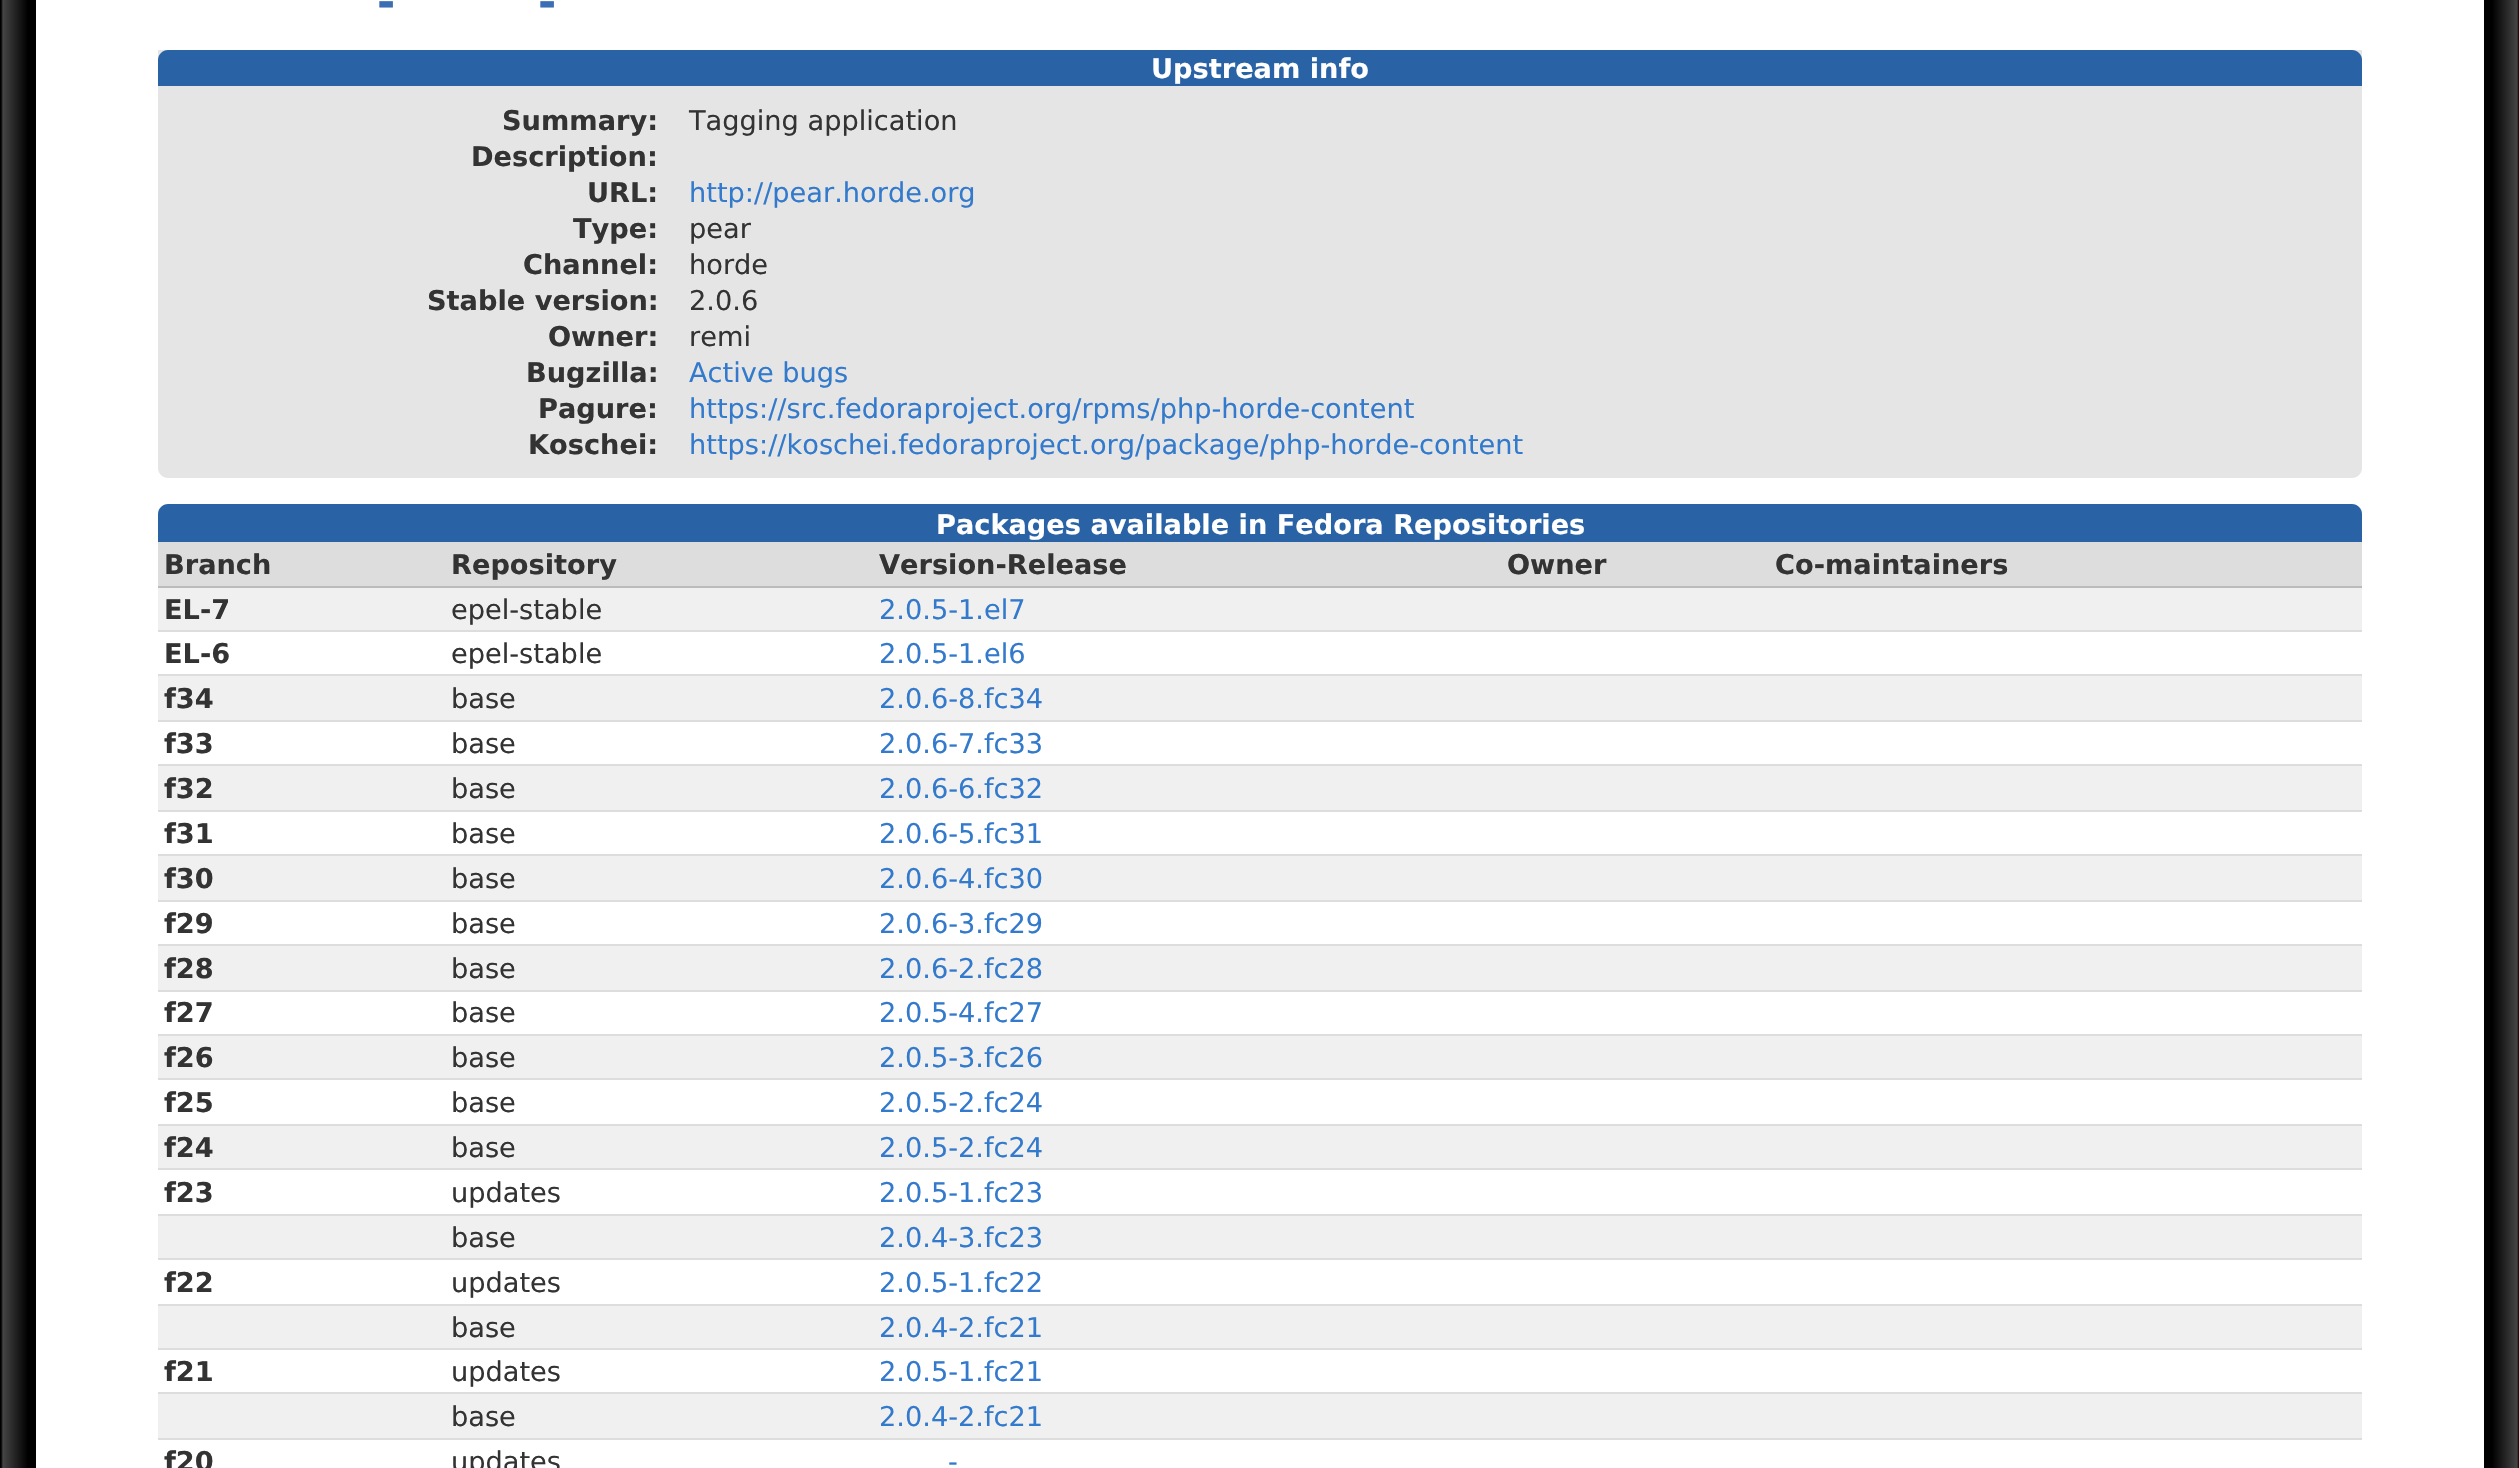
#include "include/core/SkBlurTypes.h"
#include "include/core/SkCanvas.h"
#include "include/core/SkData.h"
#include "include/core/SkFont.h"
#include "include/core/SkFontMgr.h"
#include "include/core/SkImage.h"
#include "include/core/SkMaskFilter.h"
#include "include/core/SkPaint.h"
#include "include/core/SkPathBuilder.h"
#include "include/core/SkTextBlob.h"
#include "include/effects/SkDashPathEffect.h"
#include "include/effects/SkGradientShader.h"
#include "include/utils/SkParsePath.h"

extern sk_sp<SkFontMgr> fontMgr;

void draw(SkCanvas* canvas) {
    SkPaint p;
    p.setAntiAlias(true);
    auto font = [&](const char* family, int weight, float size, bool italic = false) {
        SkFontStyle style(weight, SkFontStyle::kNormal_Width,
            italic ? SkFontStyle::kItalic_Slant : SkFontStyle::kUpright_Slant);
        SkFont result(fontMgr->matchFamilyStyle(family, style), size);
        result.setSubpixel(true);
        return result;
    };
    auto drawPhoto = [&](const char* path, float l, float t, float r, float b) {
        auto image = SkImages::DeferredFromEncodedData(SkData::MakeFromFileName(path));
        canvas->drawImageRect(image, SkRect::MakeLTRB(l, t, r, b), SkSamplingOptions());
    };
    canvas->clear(0xFFFFFFFF);
    drawPhoto("media/1.png", 0, 0, 36, 1468);
    drawPhoto("media/2.png", 2484, 0, 2519, 1468);
    auto font1 = font("DejaVu Sans", 700, 44);
    p.setColor(0xFF3C6EB4);
    canvas->drawString("-", 377, 17, font1, p);
    canvas->drawString("-", 538, 17, font1, p);
    p.setColor(0xFFE5E5E5);
    canvas->drawPath(SkPathBuilder().moveTo(158, 50).lineTo(2362, 50).lineTo(2362, 468).cubicTo(2362, 473.5f, 2357.5f, 478, 2352, 478).lineTo(168, 478).cubicTo(162.5f, 478, 158, 473.5f, 158, 468).close().detach(), p);
    p.setColor(0xFF2963A6);
    canvas->drawPath(SkPathBuilder().moveTo(168, 50).lineTo(2352, 50).cubicTo(2357.5f, 50, 2362, 54.5f, 2362, 60).lineTo(2362, 86).lineTo(158, 86).lineTo(158, 60).cubicTo(158, 54.5f, 162.5f, 50, 168, 50).close().detach(), p);
    auto font2 = font("DejaVu Sans", 700, 27.2f);
    p.setColor(0xFFFFFFFF);
    canvas->drawString("Upstream info", 1151, 78, font2, p);
    p.setColor(0xFF333333);
    canvas->drawString("Summary:", 502, 130, font2, p);
    auto font3 = font("DejaVu Sans", 400, 27.2f);
    canvas->drawString("Tagging application", 689, 130, font3, p);
    canvas->drawString("Description:", 471, 166, font2, p);
    canvas->drawString("URL:", 587, 202, font2, p);
    p.setColor(0xFF337ACC);
    canvas->drawString("http://pear.horde.org", 689, 202, font3, p);
    p.setColor(0xFF333333);
    canvas->drawString("Type:", 573, 238, font2, p);
    canvas->drawString("pear", 689, 238, font3, p);
    canvas->drawString("Channel:", 523, 274, font2, p);
    canvas->drawString("horde", 689, 274, font3, p);
    canvas->drawString("Stable version:", 427, 310, font2, p);
    canvas->drawString("2.0.6", 689, 310, font3, p);
    canvas->drawString("Owner:", 548, 346, font2, p);
    canvas->drawString("remi", 689, 346, font3, p);
    canvas->drawString("Bugzilla:", 526, 382, font2, p);
    p.setColor(0xFF337ACC);
    canvas->drawString("Active bugs", 689, 382, font3, p);
    p.setColor(0xFF333333);
    canvas->drawString("Pagure:", 538, 418, font2, p);
    p.setColor(0xFF337ACC);
    canvas->drawString("https://src.fedoraproject.org/rpms/php-horde-content", 689, 418, font3, p);
    p.setColor(0xFF333333);
    canvas->drawString("Koschei:", 528, 454, font2, p);
    p.setColor(0xFF337ACC);
    canvas->drawString("https://koschei.fedoraproject.org/package/php-horde-content", 689, 454, font3, p);
    p.setColor(0xFF2963A6);
    canvas->drawPath(SkPathBuilder().moveTo(168, 504).lineTo(2352, 504).cubicTo(2357.5f, 504, 2362, 508.5f, 2362, 514).lineTo(2362, 542).lineTo(158, 542).lineTo(158, 514).cubicTo(158, 508.5f, 162.5f, 504, 168, 504).close().detach(), p);
    p.setColor(0xFFFFFFFF);
    canvas->drawString("Packages available in Fedora Repositories", 936, 534, font2, p);
    p.setColor(0xFFDDDDDD);
    canvas->drawRect(SkRect::MakeLTRB(158, 542, 2362, 586), p);
    p.setColor(0xFF333333);
    {
        const struct { const char* s; float x, y; } items[] = {
            {"Branch", 164, 574},
            {"Repository", 451, 574},
            {"Version-Release", 879, 574},
            {"Owner", 1507, 574},
        };
        for (auto [s, x, y] : items) {
            canvas->drawString(s, x, y, font2, p);
        }
    }
    p.setColor(0xFFBBBBBB);
    canvas->drawRect(SkRect::MakeLTRB(158, 586, 2362, 588), p);
    p.setColor(0xFF333333);
    canvas->drawString("Co-maintainers", 1775, 574, font2, p);
    p.setColor(0xFFF0F0F0);
    canvas->drawRect(SkRect::MakeLTRB(158, 588, 2362, 630), p);
    p.setColor(0xFF333333);
    canvas->drawString("EL-7", 164, 619, font2, p);
    canvas->drawString("epel-stable", 451, 619, font3, p);
    p.setColor(0xFF337ACC);
    canvas->drawString("2.0.5-1.el7", 879, 619, font3, p);
    p.setColor(0xFFDDDDDD);
    canvas->drawRect(SkRect::MakeLTRB(158, 630, 2362, 632), p);
    p.setColor(0xFF333333);
    canvas->drawString("EL-6", 164, 663, font2, p);
    canvas->drawString("epel-stable", 451, 663, font3, p);
    p.setColor(0xFF337ACC);
    canvas->drawString("2.0.5-1.el6", 879, 663, font3, p);
    p.setColor(0xFFDDDDDD);
    canvas->drawRect(SkRect::MakeLTRB(158, 674, 2362, 676), p);
    p.setColor(0xFFF0F0F0);
    canvas->drawRect(SkRect::MakeLTRB(158, 676, 2362, 720), p);
    p.setColor(0xFF333333);
    canvas->drawString("f34", 164, 708, font2, p);
    canvas->drawString("base", 451, 708, font3, p);
    p.setColor(0xFF337ACC);
    canvas->drawString("2.0.6-8.fc34", 879, 708, font3, p);
    p.setColor(0xFFDDDDDD);
    canvas->drawRect(SkRect::MakeLTRB(158, 720, 2362, 722), p);
    p.setColor(0xFF333333);
    canvas->drawString("f33", 164, 753, font2, p);
    canvas->drawString("base", 451, 753, font3, p);
    p.setColor(0xFF337ACC);
    canvas->drawString("2.0.6-7.fc33", 879, 753, font3, p);
    p.setColor(0xFFDDDDDD);
    canvas->drawRect(SkRect::MakeLTRB(158, 764, 2362, 766), p);
    p.setColor(0xFFF0F0F0);
    canvas->drawRect(SkRect::MakeLTRB(158, 766, 2362, 810), p);
    p.setColor(0xFF333333);
    canvas->drawString("f32", 164, 798, font2, p);
    canvas->drawString("base", 451, 798, font3, p);
    p.setColor(0xFF337ACC);
    canvas->drawString("2.0.6-6.fc32", 879, 798, font3, p);
    p.setColor(0xFFDDDDDD);
    canvas->drawRect(SkRect::MakeLTRB(158, 810, 2362, 812), p);
    p.setColor(0xFF333333);
    canvas->drawString("f31", 164, 843, font2, p);
    canvas->drawString("base", 451, 843, font3, p);
    p.setColor(0xFF337ACC);
    canvas->drawString("2.0.6-5.fc31", 879, 843, font3, p);
    p.setColor(0xFFDDDDDD);
    canvas->drawRect(SkRect::MakeLTRB(158, 854, 2362, 856), p);
    p.setColor(0xFFF0F0F0);
    canvas->drawRect(SkRect::MakeLTRB(158, 856, 2362, 900), p);
    p.setColor(0xFF333333);
    canvas->drawString("f30", 164, 888, font2, p);
    canvas->drawString("base", 451, 888, font3, p);
    p.setColor(0xFF337ACC);
    canvas->drawString("2.0.6-4.fc30", 879, 888, font3, p);
    p.setColor(0xFFDDDDDD);
    canvas->drawRect(SkRect::MakeLTRB(158, 900, 2362, 902), p);
    p.setColor(0xFF333333);
    canvas->drawString("f29", 164, 933, font2, p);
    canvas->drawString("base", 451, 933, font3, p);
    p.setColor(0xFF337ACC);
    canvas->drawString("2.0.6-3.fc29", 879, 933, font3, p);
    p.setColor(0xFFDDDDDD);
    canvas->drawRect(SkRect::MakeLTRB(158, 944, 2362, 946), p);
    p.setColor(0xFFF0F0F0);
    canvas->drawRect(SkRect::MakeLTRB(158, 946, 2362, 990), p);
    p.setColor(0xFF333333);
    canvas->drawString("f28", 164, 978, font2, p);
    canvas->drawString("base", 451, 978, font3, p);
    p.setColor(0xFF337ACC);
    canvas->drawString("2.0.6-2.fc28", 879, 978, font3, p);
    p.setColor(0xFFDDDDDD);
    canvas->drawRect(SkRect::MakeLTRB(158, 990, 2362, 992), p);
    p.setColor(0xFF333333);
    canvas->drawString("f27", 164, 1022, font2, p);
    canvas->drawString("base", 451, 1022, font3, p);
    p.setColor(0xFF337ACC);
    canvas->drawString("2.0.5-4.fc27", 879, 1022, font3, p);
    p.setColor(0xFFDDDDDD);
    canvas->drawRect(SkRect::MakeLTRB(158, 1034, 2362, 1036), p);
    p.setColor(0xFFF0F0F0);
    canvas->drawRect(SkRect::MakeLTRB(158, 1036, 2362, 1078), p);
    p.setColor(0xFF333333);
    canvas->drawString("f26", 164, 1067, font2, p);
    canvas->drawString("base", 451, 1067, font3, p);
    p.setColor(0xFF337ACC);
    canvas->drawString("2.0.5-3.fc26", 879, 1067, font3, p);
    p.setColor(0xFFDDDDDD);
    canvas->drawRect(SkRect::MakeLTRB(158, 1078, 2362, 1080), p);
    p.setColor(0xFF333333);
    canvas->drawString("f25", 164, 1112, font2, p);
    canvas->drawString("base", 451, 1112, font3, p);
    p.setColor(0xFF337ACC);
    canvas->drawString("2.0.5-2.fc24", 879, 1112, font3, p);
    p.setColor(0xFFDDDDDD);
    canvas->drawRect(SkRect::MakeLTRB(158, 1124, 2362, 1126), p);
    p.setColor(0xFFF0F0F0);
    canvas->drawRect(SkRect::MakeLTRB(158, 1126, 2362, 1168), p);
    p.setColor(0xFF333333);
    canvas->drawString("f24", 164, 1157, font2, p);
    canvas->drawString("base", 451, 1157, font3, p);
    p.setColor(0xFF337ACC);
    canvas->drawString("2.0.5-2.fc24", 879, 1157, font3, p);
    p.setColor(0xFFDDDDDD);
    canvas->drawRect(SkRect::MakeLTRB(158, 1168, 2362, 1170), p);
    p.setColor(0xFF333333);
    canvas->drawString("f23", 164, 1202, font2, p);
    canvas->drawString("updates", 451, 1202, font3, p);
    p.setColor(0xFF337ACC);
    canvas->drawString("2.0.5-1.fc23", 879, 1202, font3, p);
    p.setColor(0xFFDDDDDD);
    canvas->drawRect(SkRect::MakeLTRB(158, 1214, 2362, 1216), p);
    p.setColor(0xFFF0F0F0);
    canvas->drawRect(SkRect::MakeLTRB(158, 1216, 2362, 1258), p);
    p.setColor(0xFF333333);
    canvas->drawString("base", 451, 1247, font3, p);
    p.setColor(0xFF337ACC);
    canvas->drawString("2.0.4-3.fc23", 879, 1247, font3, p);
    p.setColor(0xFFDDDDDD);
    canvas->drawRect(SkRect::MakeLTRB(158, 1258, 2362, 1260), p);
    p.setColor(0xFF333333);
    canvas->drawString("f22", 164, 1292, font2, p);
    canvas->drawString("updates", 451, 1292, font3, p);
    p.setColor(0xFF337ACC);
    canvas->drawString("2.0.5-1.fc22", 879, 1292, font3, p);
    p.setColor(0xFFDDDDDD);
    canvas->drawRect(SkRect::MakeLTRB(158, 1304, 2362, 1306), p);
    p.setColor(0xFFF0F0F0);
    canvas->drawRect(SkRect::MakeLTRB(158, 1306, 2362, 1348), p);
    p.setColor(0xFF333333);
    canvas->drawString("base", 451, 1337, font3, p);
    p.setColor(0xFF337ACC);
    canvas->drawString("2.0.4-2.fc21", 879, 1337, font3, p);
    p.setColor(0xFFDDDDDD);
    canvas->drawRect(SkRect::MakeLTRB(158, 1348, 2362, 1350), p);
    p.setColor(0xFF333333);
    canvas->drawString("f21", 164, 1381, font2, p);
    canvas->drawString("updates", 451, 1381, font3, p);
    p.setColor(0xFF337ACC);
    canvas->drawString("2.0.5-1.fc21", 879, 1381, font3, p);
    p.setColor(0xFFDDDDDD);
    canvas->drawRect(SkRect::MakeLTRB(158, 1392, 2362, 1394), p);
    p.setColor(0xFFF0F0F0);
    canvas->drawRect(SkRect::MakeLTRB(158, 1394, 2362, 1438), p);
    p.setColor(0xFF333333);
    canvas->drawString("base", 451, 1426, font3, p);
    p.setColor(0xFF337ACC);
    canvas->drawString("2.0.4-2.fc21", 879, 1426, font3, p);
    p.setColor(0xFFDDDDDD);
    canvas->drawRect(SkRect::MakeLTRB(158, 1438, 2362, 1440), p);
    p.setColor(0xFF333333);
    canvas->drawString("f20", 164, 1471, font2, p);
    canvas->drawString("updates", 451, 1471, font3, p);
    p.setColor(0xFF337ACC);
    canvas->drawString("-", 948, 1471, font3, p);
}
